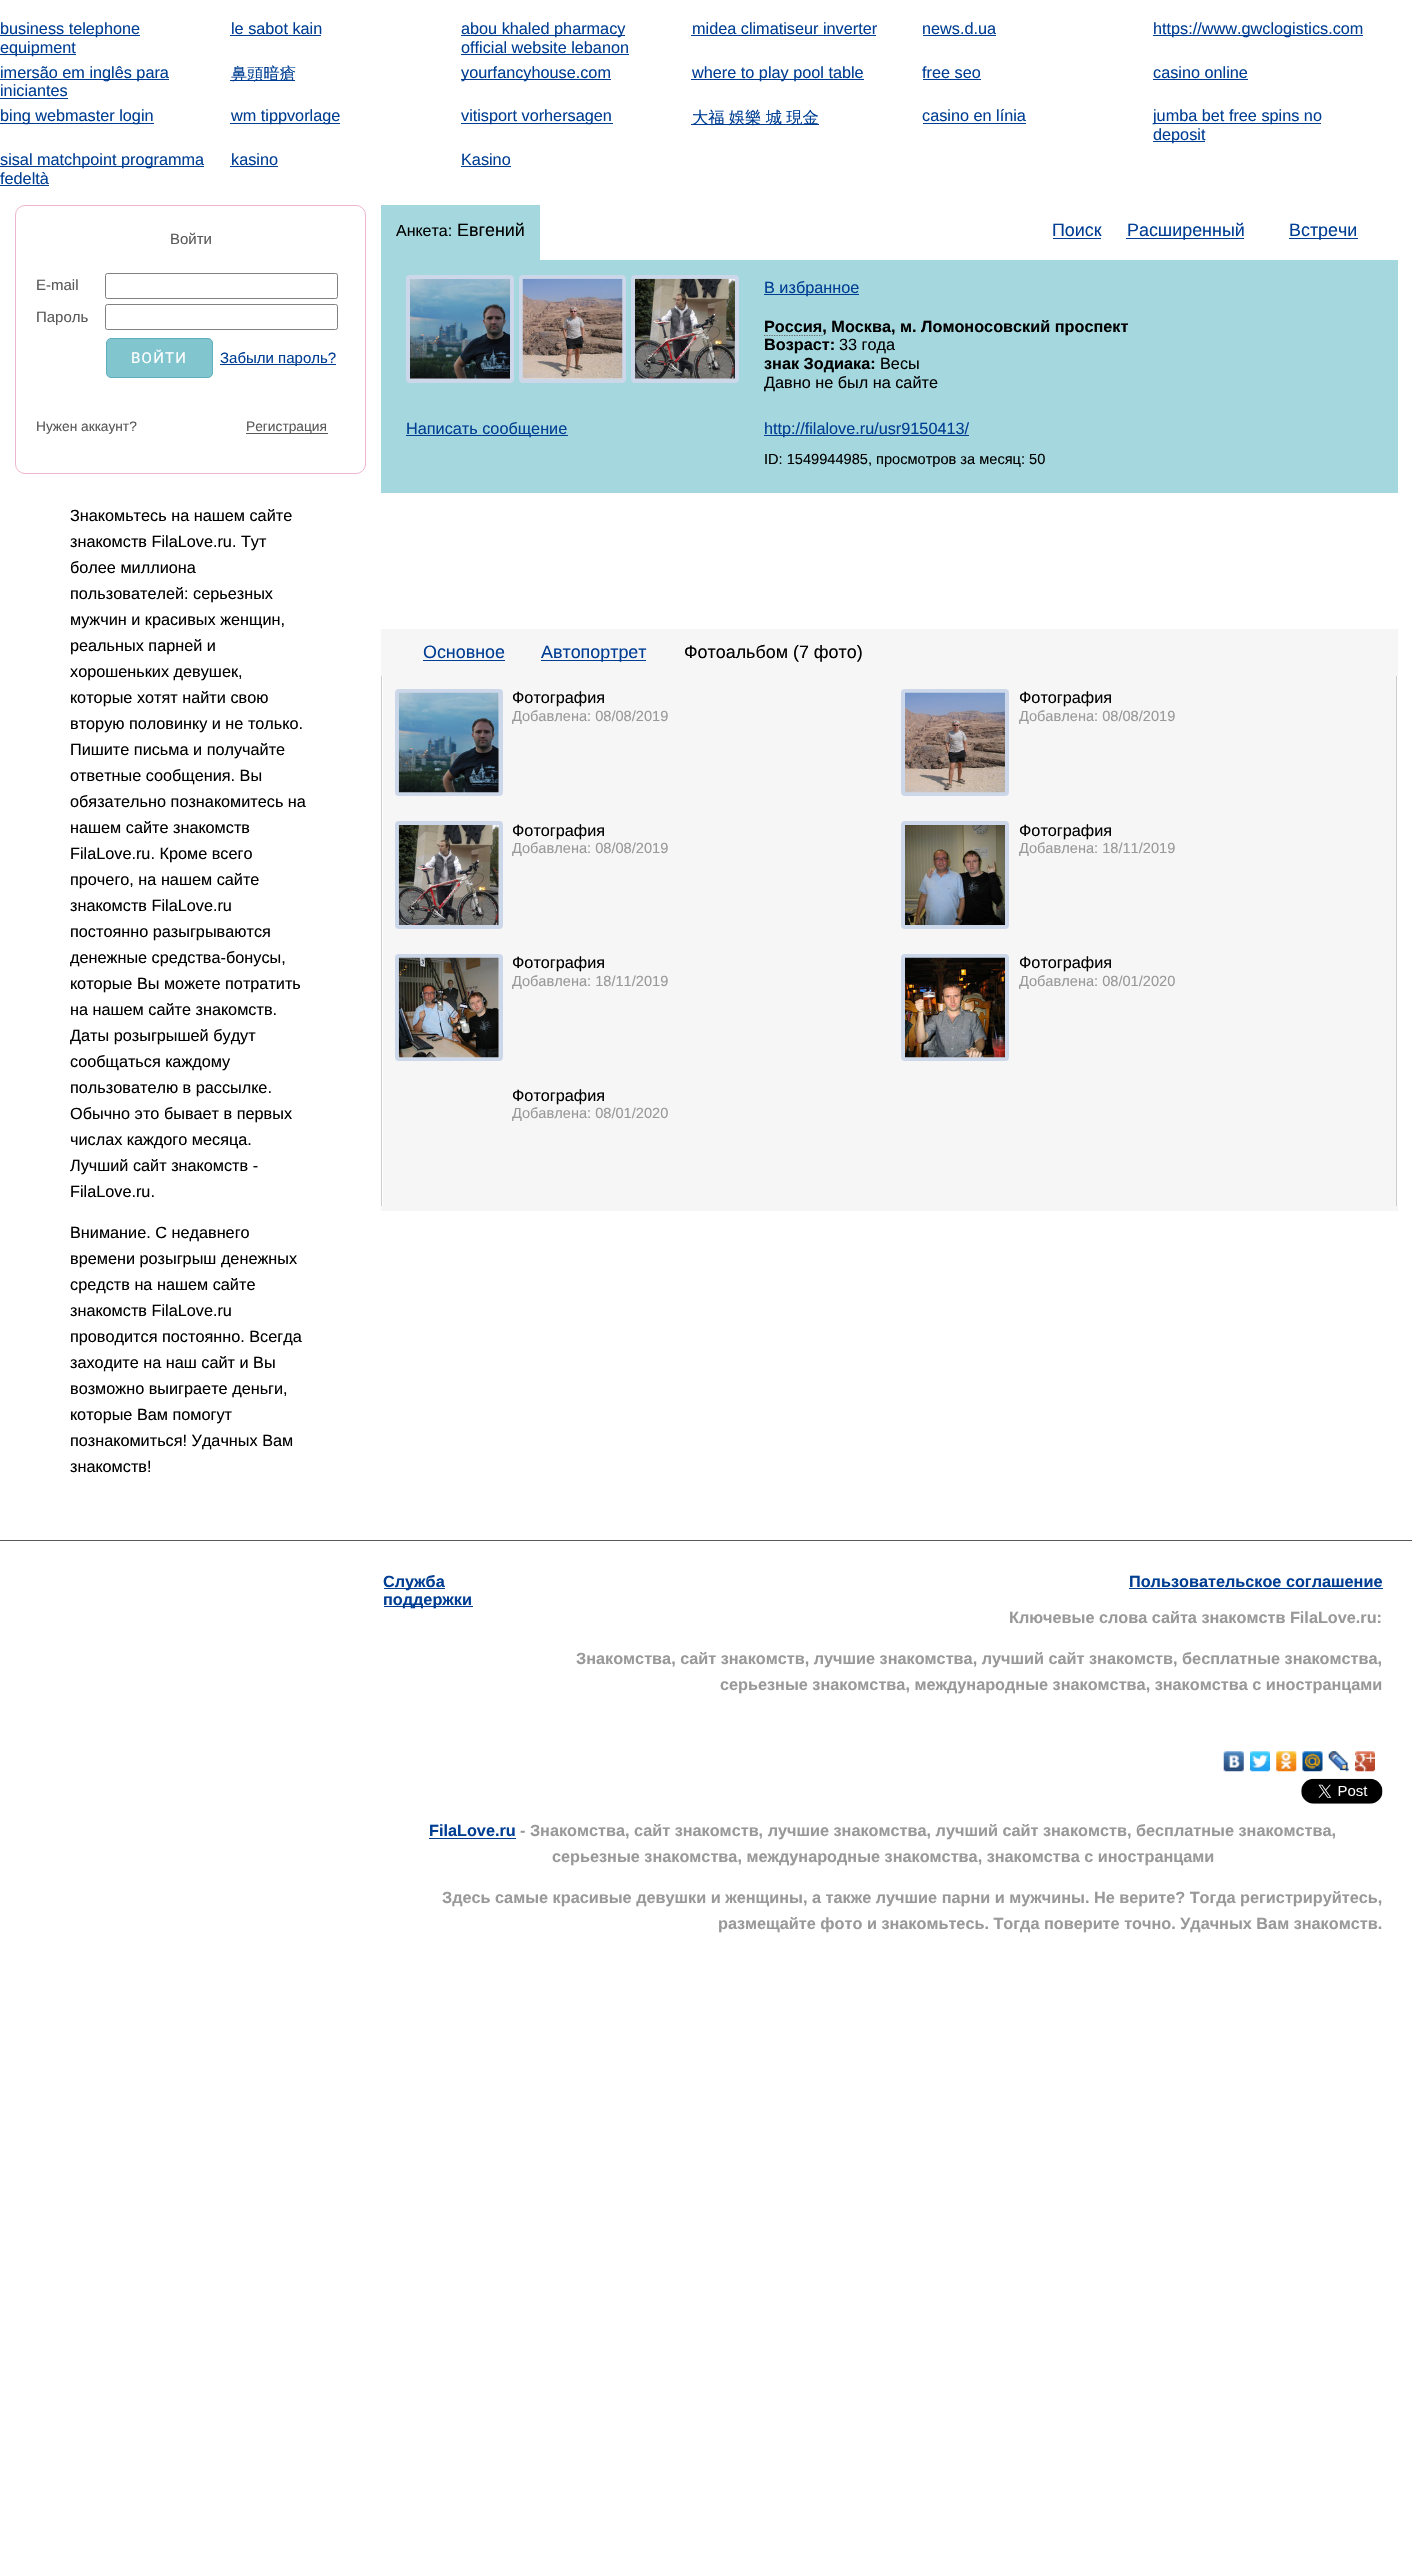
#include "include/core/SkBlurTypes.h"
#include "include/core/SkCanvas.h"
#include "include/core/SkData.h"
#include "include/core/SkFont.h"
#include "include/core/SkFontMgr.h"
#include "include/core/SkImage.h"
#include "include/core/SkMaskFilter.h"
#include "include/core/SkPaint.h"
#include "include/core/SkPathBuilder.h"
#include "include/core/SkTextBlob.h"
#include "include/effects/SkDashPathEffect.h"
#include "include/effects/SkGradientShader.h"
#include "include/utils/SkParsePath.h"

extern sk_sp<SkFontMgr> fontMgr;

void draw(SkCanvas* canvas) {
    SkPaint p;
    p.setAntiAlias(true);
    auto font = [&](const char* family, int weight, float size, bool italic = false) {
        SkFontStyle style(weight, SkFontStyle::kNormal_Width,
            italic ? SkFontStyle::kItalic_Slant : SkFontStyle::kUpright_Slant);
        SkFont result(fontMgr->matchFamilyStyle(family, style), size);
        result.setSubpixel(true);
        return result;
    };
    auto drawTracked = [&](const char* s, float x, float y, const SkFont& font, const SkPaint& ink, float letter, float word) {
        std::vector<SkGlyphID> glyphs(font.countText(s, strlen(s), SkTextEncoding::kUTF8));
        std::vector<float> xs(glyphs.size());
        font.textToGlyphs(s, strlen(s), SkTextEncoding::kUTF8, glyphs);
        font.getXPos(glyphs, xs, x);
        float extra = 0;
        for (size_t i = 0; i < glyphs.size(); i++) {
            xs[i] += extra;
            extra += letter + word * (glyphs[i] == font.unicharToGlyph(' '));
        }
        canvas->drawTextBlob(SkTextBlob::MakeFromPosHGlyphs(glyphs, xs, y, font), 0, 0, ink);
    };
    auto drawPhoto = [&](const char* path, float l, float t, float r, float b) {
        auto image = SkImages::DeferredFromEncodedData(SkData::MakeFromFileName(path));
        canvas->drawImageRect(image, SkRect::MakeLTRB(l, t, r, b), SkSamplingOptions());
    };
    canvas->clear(0xFFFFFFFF);
    p.setColor(0xFF003E93);
    canvas->drawRect(SkRect::MakeLTRB(0, 35, 140, 36), p);
    auto font1 = font("Liberation Sans", 400, 16.25f);
    canvas->drawString("business telephone", 0, 34, font1, p);
    canvas->drawRect(SkRect::MakeLTRB(0, 54, 76, 55), p);
    canvas->drawString("equipment", 0, 53, font1, p);
    canvas->drawString("le sabot kain", 231, 34, font1, p);
    canvas->drawRect(SkRect::MakeLTRB(230, 35, 321, 36), p);
    canvas->drawRect(SkRect::MakeLTRB(461, 35, 625, 36), p);
    canvas->drawString("abou khaled pharmacy", 461, 34, font1, p);
    canvas->drawString("official website lebanon", 461, 53, font1, p);
    canvas->drawRect(SkRect::MakeLTRB(461, 54, 629, 55), p);
    canvas->drawString("midea climatiseur inverter", 692, 34, font1, p);
    canvas->drawRect(SkRect::MakeLTRB(691, 35, 876, 36), p);
    canvas->drawString("news.d.ua", 922, 34, font1, p);
    canvas->drawRect(SkRect::MakeLTRB(923, 35, 996, 36), p);
    canvas->drawRect(SkRect::MakeLTRB(1153, 35, 1363, 36), p);
    canvas->drawString("https://www.gwclogistics.com", 1153, 34, font1, p);
    canvas->drawRect(SkRect::MakeLTRB(0, 79, 169, 80), p);
    canvas->drawString("imersão em inglês para", 0, 78, font1, p);
    canvas->drawString("iniciantes", 0, 96, font1, p);
    canvas->drawRect(SkRect::MakeLTRB(0, 98, 68, 99), p);
    canvas->drawRect(SkRect::MakeLTRB(230, 80, 295, 81), p);
    auto font2 = font("WenQuanYi Zen Hei", 500, 16.25f);
    canvas->drawString("鼻頭暗瘡", 231, 79, font2, p);
    canvas->drawRect(SkRect::MakeLTRB(461, 79, 611, 80), p);
    canvas->drawString("yourfancyhouse.com", 461, 78, font1, p);
    canvas->drawRect(SkRect::MakeLTRB(691, 79, 864, 80), p);
    canvas->drawString("where to play pool table", 692, 78, font1, p);
    canvas->drawString("free seo", 922, 78, font1, p);
    canvas->drawRect(SkRect::MakeLTRB(923, 79, 981, 80), p);
    canvas->drawString("casino online", 1153, 78, font1, p);
    canvas->drawRect(SkRect::MakeLTRB(1153, 79, 1248, 80), p);
    canvas->drawRect(SkRect::MakeLTRB(0, 123, 154, 124), p);
    canvas->drawString("bing webmaster login", 0, 121, font1, p);
    canvas->drawRect(SkRect::MakeLTRB(230, 123, 340, 124), p);
    canvas->drawString("wm tippvorlage", 231, 121, font1, p);
    canvas->drawRect(SkRect::MakeLTRB(461, 123, 613, 124), p);
    canvas->drawString("vitisport vorhersagen", 461, 121, font1, p);
    canvas->drawRect(SkRect::MakeLTRB(691, 124, 819, 125), p);
    drawTracked("大福 娛樂 城 現金", 692, 123, font2, p, 0, -0.5f);
    canvas->drawString("casino en línia", 922, 121, font1, p);
    canvas->drawRect(SkRect::MakeLTRB(923, 123, 1026, 124), p);
    canvas->drawRect(SkRect::MakeLTRB(1153, 123, 1321, 124), p);
    canvas->drawString("jumba bet free spins no", 1153, 121, font1, p);
    canvas->drawRect(SkRect::MakeLTRB(1153, 141, 1205, 142), p);
    canvas->drawString("deposit", 1153, 140, font1, p);
    canvas->drawRect(SkRect::MakeLTRB(0, 166, 204, 167), p);
    canvas->drawString("sisal matchpoint programma", 0, 165, font1, p);
    canvas->drawString("fedeltà", 0, 184, font1, p);
    canvas->drawRect(SkRect::MakeLTRB(0, 185, 49, 186), p);
    canvas->drawString("kasino", 231, 165, font1, p);
    canvas->drawRect(SkRect::MakeLTRB(230, 166, 278, 167), p);
    canvas->drawString("Kasino", 461, 165, font1, p);
    canvas->drawRect(SkRect::MakeLTRB(461, 166, 511, 167), p);
    p.setColor(0xFF595959);
    canvas->drawRect(SkRect::MakeLTRB(0, 1540, 1412, 1541), p);
    p.setStyle(SkPaint::kStroke_Style);
    p.setStrokeWidth(1);
    p.setColor(0xFFEFB5CE);
    canvas->drawRoundRect(SkRect::MakeLTRB(15.5f, 205.5f, 365.5f, 473.5f), 9.5f, 9.5f, p);
    auto font3 = font("Liberation Sans", 400, 15);
    p.setStyle(SkPaint::kFill_Style);
    p.setColor(0xFF595959);
    canvas->drawString("Войти", 170, 244, font3, p);
    canvas->drawString("E-mail", 36, 290, font3, p);
    p.setStyle(SkPaint::kStroke_Style);
    p.setColor(0xFF808080);
    canvas->drawRoundRect(SkRect::MakeLTRB(105.5f, 273.5f, 337.5f, 298.5f), 2, 2, p);
    p.setStyle(SkPaint::kFill_Style);
    p.setColor(0xFF595959);
    canvas->drawString("Пароль", 36, 322, font3, p);
    p.setStyle(SkPaint::kStroke_Style);
    p.setColor(0xFF808080);
    canvas->drawRoundRect(SkRect::MakeLTRB(105.5f, 304.5f, 337.5f, 329.5f), 2, 2, p);
    p.setStyle(SkPaint::kFill_Style);
    p.setColor(0xFF81C5CF);
    canvas->drawRoundRect(SkRect::MakeLTRB(106.5f, 338.5f, 212.5f, 377.5f), 4.5f, 4.5f, p);
    p.setStyle(SkPaint::kStroke_Style);
    p.setColor(0xFF60AFBC);
    canvas->drawRoundRect(SkRect::MakeLTRB(106.5f, 338.5f, 212.5f, 377.5f), 4.5f, 4.5f, p);
    auto font4 = font("Roboto", 400, 15);
    p.setStyle(SkPaint::kFill_Style);
    p.setColor(0xFFFFFFFF);
    drawTracked("ВОЙТИ", 131, 363, font4, p, 1.25f, 0);
    p.setColor(0xFF003E93);
    canvas->drawRect(SkRect::MakeLTRB(220, 364, 336, 365), p);
    canvas->drawString("Забыли пароль?", 220, 363, font3, p);
    auto font5 = font("Liberation Sans", 400, 13.75f);
    p.setColor(0xFF595959);
    canvas->drawString("Нужен аккаунт?", 36, 431, font5, p);
    canvas->drawRect(SkRect::MakeLTRB(246, 433, 328, 434), p);
    canvas->drawString("Регистрация", 246, 431, font5, p);
    p.setColor(0xFF000000);
    {
        const struct { const char* s; float x, y; } items[] = {
            {"Знакомьтесь на нашем сайте", 70, 521},
            {"знакомств FilaLove.ru. Тут", 70, 547},
            {"более миллиона", 70, 573},
            {"пользователей: серьезных", 70, 599},
            {"мужчин и красивых женщин,", 70, 625},
            {"реальных парней и", 70, 651},
            {"хорошеньких девушек,", 70, 677},
            {"которые хотят найти свою", 70, 703},
            {"вторую половинку и не только.", 70, 729},
            {"Пишите письма и получайте", 70, 755},
            {"ответные сообщения. Вы", 70, 781},
            {"обязательно познакомитесь на", 70, 807},
            {"нашем сайте знакомств", 70, 833},
            {"FilaLove.ru. Кроме всего", 70, 859},
            {"прочего, на нашем сайте", 70, 885},
            {"знакомств FilaLove.ru", 70, 911},
            {"постоянно разыгрываются", 70, 937},
            {"денежные средства-бонусы,", 70, 963},
            {"которые Вы можете потратить", 70, 989},
            {"на нашем сайте знакомств.", 70, 1015},
            {"Даты розыгрышей будут", 70, 1041},
            {"сообщаться каждому", 70, 1067},
            {"пользователю в рассылке.", 70, 1093},
            {"Обычно это бывает в первых", 70, 1119},
            {"числах каждого месяца.", 70, 1145},
            {"Лучший сайт знакомств -", 70, 1171},
            {"FilaLove.ru.", 70, 1197},
            {"Внимание. С недавнего", 70, 1238},
            {"времени розыгрыш денежных", 70, 1264},
            {"средств на нашем сайте", 70, 1290},
            {"знакомств FilaLove.ru", 70, 1316},
            {"проводится постоянно. Всегда", 70, 1342},
            {"заходите на наш сайт и Вы", 70, 1368},
            {"возможно выиграете деньги,", 70, 1394},
            {"которые Вам помогут", 70, 1420},
            {"познакомиться! Удачных Вам", 70, 1446},
            {"знакомств!", 70, 1472},
        };
        for (auto [s, x, y] : items) {
            canvas->drawString(s, x, y, font1, p);
        }
    }
    p.setColor(0xFFA4D7DE);
    canvas->drawRect(SkRect::MakeLTRB(381, 205, 540, 260), p);
    auto font6 = font("Liberation Sans", 400, 16);
    p.setColor(0xFF000000);
    canvas->drawString("Анкета:", 396, 236, font6, p);
    auto font7 = font("Liberation Sans", 400, 17.9f);
    canvas->drawString("Евгений", 457, 236, font7, p);
    p.setColor(0xFF003E93);
    canvas->drawString("Поиск", 1052, 236, font7, p);
    canvas->drawRect(SkRect::MakeLTRB(1053, 238, 1101, 239), p);
    canvas->drawRect(SkRect::MakeLTRB(1126, 238, 1244, 239), p);
    canvas->drawString("Расширенный", 1127, 236, font7, p);
    canvas->drawRect(SkRect::MakeLTRB(1289, 238, 1358, 239), p);
    canvas->drawString("Встречи", 1289, 236, font7, p);
    p.setColor(0xFFA4D7DE);
    canvas->drawRect(SkRect::MakeLTRB(381, 260, 1398, 493), p);
    p.setColor(0xFFEDEDED);
    canvas->drawRoundRect(SkRect::MakeLTRB(408, 277, 512, 381), 2, 2, p);
    p.setStyle(SkPaint::kStroke_Style);
    p.setStrokeWidth(4);
    p.setColor(0xFFCCD8E9);
    canvas->drawRoundRect(SkRect::MakeLTRB(408, 277, 512, 381), 2, 2, p);
    drawPhoto("media/1.png", 410, 279, 510, 379);
    p.setStyle(SkPaint::kFill_Style);
    p.setColor(0xFFEDEDED);
    canvas->drawRoundRect(SkRect::MakeLTRB(521, 277, 624, 381), 2, 2, p);
    p.setStyle(SkPaint::kStroke_Style);
    p.setColor(0xFFCCD8E9);
    canvas->drawRoundRect(SkRect::MakeLTRB(521, 277, 624, 381), 2, 2, p);
    drawPhoto("media/2.png", 522, 278, 623, 379);
    p.setStyle(SkPaint::kFill_Style);
    p.setColor(0xFFEDEDED);
    canvas->drawRoundRect(SkRect::MakeLTRB(633, 277, 737, 381), 2, 2, p);
    p.setStyle(SkPaint::kStroke_Style);
    p.setColor(0xFFCCD8E9);
    canvas->drawRoundRect(SkRect::MakeLTRB(633, 277, 737, 381), 2, 2, p);
    drawPhoto("media/3.png", 635, 278, 735, 379);
    p.setStyle(SkPaint::kFill_Style);
    p.setColor(0xFF003E93);
    canvas->drawRect(SkRect::MakeLTRB(764, 294, 859, 295), p);
    canvas->drawString("В избранное", 764, 293, font1, p);
    p.setStyle(SkPaint::kStroke_Style);
    p.setStrokeWidth(1.2f);
    p.setColor(0xFF666666);
    p.setPathEffect(SkDashPathEffect::Make({{1.25f, 1.25f}}, 0));
    canvas->drawPath(SkPathBuilder().moveTo(764, 335.5f).lineTo(822.5f, 335.5f).detach(), p);
    p.setPathEffect(nullptr);
    auto font8 = font("Liberation Sans", 700, 16.25f);
    p.setStyle(SkPaint::kFill_Style);
    p.setColor(0xFF000000);
    canvas->drawString("Россия, Москва, м. Ломоносовский проспект", 764, 332, font8, p);
    canvas->drawString("Возраст:", 764, 350, font8, p);
    canvas->drawString("33 года", 839, 350, font1, p);
    canvas->drawString("знак Зодиака:", 764, 369, font8, p);
    canvas->drawString("Весы", 880, 369, font1, p);
    canvas->drawString("Давно не был на сайте", 764, 388, font1, p);
    p.setColor(0xFF003E93);
    canvas->drawRect(SkRect::MakeLTRB(406, 435, 568, 436), p);
    canvas->drawString("Написать сообщение", 406, 434, font1, p);
    canvas->drawRect(SkRect::MakeLTRB(764, 435, 969, 436), p);
    canvas->drawString("http://filalove.ru/usr9150413/", 764, 434, font1, p);
    auto font9 = font("Liberation Sans", 400, 14.6f);
    p.setColor(0xFF000000);
    canvas->drawString("ID: 1549944985, просмотров за месяц: 50", 764, 464, font9, p);
    p.setColor(0xFFF6F6F6);
    canvas->drawRect(SkRect::MakeLTRB(381, 629, 1398, 676), p);
    p.setColor(0xFF003E93);
    canvas->drawString("Основное", 423, 658, font7, p);
    canvas->drawRect(SkRect::MakeLTRB(423, 660, 505, 661), p);
    canvas->drawRect(SkRect::MakeLTRB(541, 660, 646, 661), p);
    canvas->drawString("Автопортрет", 541, 658, font7, p);
    p.setColor(0xFF000000);
    canvas->drawString("Фотоальбом (7 фото)", 684, 658, font7, p);
    p.setColor(0xFFCCCCCC);
    canvas->drawRect(SkRect::MakeLTRB(381, 676, 382, 1206), p);
    p.setColor(0xFFF6F6F6);
    canvas->drawRect(SkRect::MakeLTRB(383, 676, 1396, 1206), p);
    p.setColor(0xFFEDEDED);
    canvas->drawRoundRect(SkRect::MakeLTRB(397, 691, 501, 794), 2, 2, p);
    p.setStyle(SkPaint::kStroke_Style);
    p.setStrokeWidth(4);
    p.setColor(0xFFCCD8E9);
    canvas->drawRoundRect(SkRect::MakeLTRB(397, 691, 501, 794), 2, 2, p);
    drawPhoto("media/4.png", 398, 692, 499, 793);
    p.setStyle(SkPaint::kFill_Style);
    p.setColor(0xFF000000);
    canvas->drawString("Фотография", 512, 703, font1, p);
    p.setColor(0xFF999999);
    canvas->drawString("Добавлена: 08/08/2019", 512, 721, font9, p);
    p.setStyle(SkPaint::kStroke_Style);
    p.setColor(0xFFCCD8E9);
    canvas->drawRoundRect(SkRect::MakeLTRB(903, 691, 1007, 794), 2, 2, p);
    drawPhoto("media/5.png", 905, 692, 1005, 793);
    p.setStyle(SkPaint::kFill_Style);
    p.setColor(0xFF000000);
    canvas->drawString("Фотография", 1019, 703, font1, p);
    p.setColor(0xFF999999);
    canvas->drawString("Добавлена: 08/08/2019", 1019, 721, font9, p);
    p.setColor(0xFFEDEDED);
    canvas->drawRoundRect(SkRect::MakeLTRB(397, 823, 501, 927), 2, 2, p);
    p.setStyle(SkPaint::kStroke_Style);
    p.setColor(0xFFCCD8E9);
    canvas->drawRoundRect(SkRect::MakeLTRB(397, 823, 501, 927), 2, 2, p);
    drawPhoto("media/6.png", 398, 825, 499, 925);
    p.setStyle(SkPaint::kFill_Style);
    p.setColor(0xFF000000);
    canvas->drawString("Фотография", 512, 836, font1, p);
    p.setColor(0xFF999999);
    canvas->drawString("Добавлена: 08/08/2019", 512, 853, font9, p);
    p.setStyle(SkPaint::kStroke_Style);
    p.setColor(0xFFCCD8E9);
    canvas->drawRoundRect(SkRect::MakeLTRB(903, 823, 1007, 927), 2, 2, p);
    drawPhoto("media/7.png", 905, 825, 1005, 925);
    p.setStyle(SkPaint::kFill_Style);
    p.setColor(0xFF000000);
    canvas->drawString("Фотография", 1019, 836, font1, p);
    p.setColor(0xFF999999);
    canvas->drawString("Добавлена: 18/11/2019", 1019, 853, font9, p);
    p.setColor(0xFFEDEDED);
    canvas->drawRoundRect(SkRect::MakeLTRB(397, 956, 501, 1059), 2, 2, p);
    p.setStyle(SkPaint::kStroke_Style);
    p.setColor(0xFFCCD8E9);
    canvas->drawRoundRect(SkRect::MakeLTRB(397, 956, 501, 1059), 2, 2, p);
    drawPhoto("media/8.png", 398, 957, 499, 1058);
    p.setStyle(SkPaint::kFill_Style);
    p.setColor(0xFF000000);
    canvas->drawString("Фотография", 512, 968, font1, p);
    p.setColor(0xFF999999);
    canvas->drawString("Добавлена: 18/11/2019", 512, 986, font9, p);
    p.setStyle(SkPaint::kStroke_Style);
    p.setColor(0xFFCCD8E9);
    canvas->drawRoundRect(SkRect::MakeLTRB(903, 956, 1007, 1059), 2, 2, p);
    drawPhoto("media/9.png", 905, 957, 1005, 1058);
    p.setStyle(SkPaint::kFill_Style);
    p.setColor(0xFF000000);
    canvas->drawString("Фотография", 1019, 968, font1, p);
    p.setColor(0xFF999999);
    canvas->drawString("Добавлена: 08/01/2020", 1019, 986, font9, p);
    p.setColor(0xFF000000);
    canvas->drawString("Фотография", 512, 1101, font1, p);
    p.setColor(0xFF999999);
    canvas->drawString("Добавлена: 08/01/2020", 512, 1118, font9, p);
    {
        const struct { float l, t, r, b; SkColor color; } items[] = {
            {1396, 676, 1397, 1206, 0xFFCCCCCC},
            {381, 1206, 1398, 1211, 0xFFF6F6F6},
            {384, 1588, 445, 1589, 0xFF003E93},
        };
        for (auto [l, t, r, b, color] : items) {
            p.setColor(color);
            canvas->drawRect(SkRect::MakeLTRB(l, t, r, b), p);
        }
    }
    canvas->drawString("Служба", 383, 1587, font8, p);
    canvas->drawRect(SkRect::MakeLTRB(384, 1606, 473, 1607), p);
    canvas->drawString("поддержки", 383, 1605, font8, p);
    canvas->drawString("Пользовательское соглашение", 1129, 1587, font8, p);
    canvas->drawRect(SkRect::MakeLTRB(1129, 1588, 1383, 1589), p);
    p.setColor(0xFF999999);
    {
        const struct { const char* s; float x, y; } items[] = {
            {"Ключевые слова сайта знакомств FilaLove.ru:", 1009, 1623},
            {"Знакомства, сайт знакомств, лучшие знакомства, лучший сайт знакомств, бесплатные знакомства,", 576, 1664},
            {"серьезные знакомства, международные знакомства, знакомства с иностранцами", 720, 1690},
        };
        for (auto [s, x, y] : items) {
            canvas->drawString(s, x, y, font8, p);
        }
    }
    drawPhoto("media/10.png", 1223, 1751, 1244, 1772);
    drawPhoto("media/11.png", 1250, 1751, 1270, 1772);
    drawPhoto("media/12.png", 1276, 1751, 1297, 1772);
    drawPhoto("media/13.png", 1302, 1751, 1323, 1772);
    drawPhoto("media/14.png", 1328, 1751, 1349, 1772);
    drawPhoto("media/15.png", 1355, 1751, 1375, 1772);
    drawPhoto("media/16.png", 1301, 1778, 1383, 1804);
    p.setColor(0xFF003E93);
    canvas->drawString("FilaLove.ru", 429, 1836, font8, p);
    canvas->drawRect(SkRect::MakeLTRB(429, 1838, 516, 1839), p);
    p.setColor(0xFF999999);
    {
        const struct { const char* s; float x, y; } items[] = {
            {"- Знакомства, сайт знакомств, лучшие знакомства, лучший сайт знакомств, бесплатные знакомства,", 520, 1836},
            {"серьезные знакомства, международные знакомства, знакомства с иностранцами", 552, 1862},
            {"Здесь самые красивые девушки и женщины, а также лучшие парни и мужчины. Не верите? Тогда регистрируйтесь,", 442, 1903},
            {"размещайте фото и знакомьтесь. Тогда поверите точно. Удачных Вам знакомств.", 718, 1929},
        };
        for (auto [s, x, y] : items) {
            canvas->drawString(s, x, y, font8, p);
        }
    }
}
